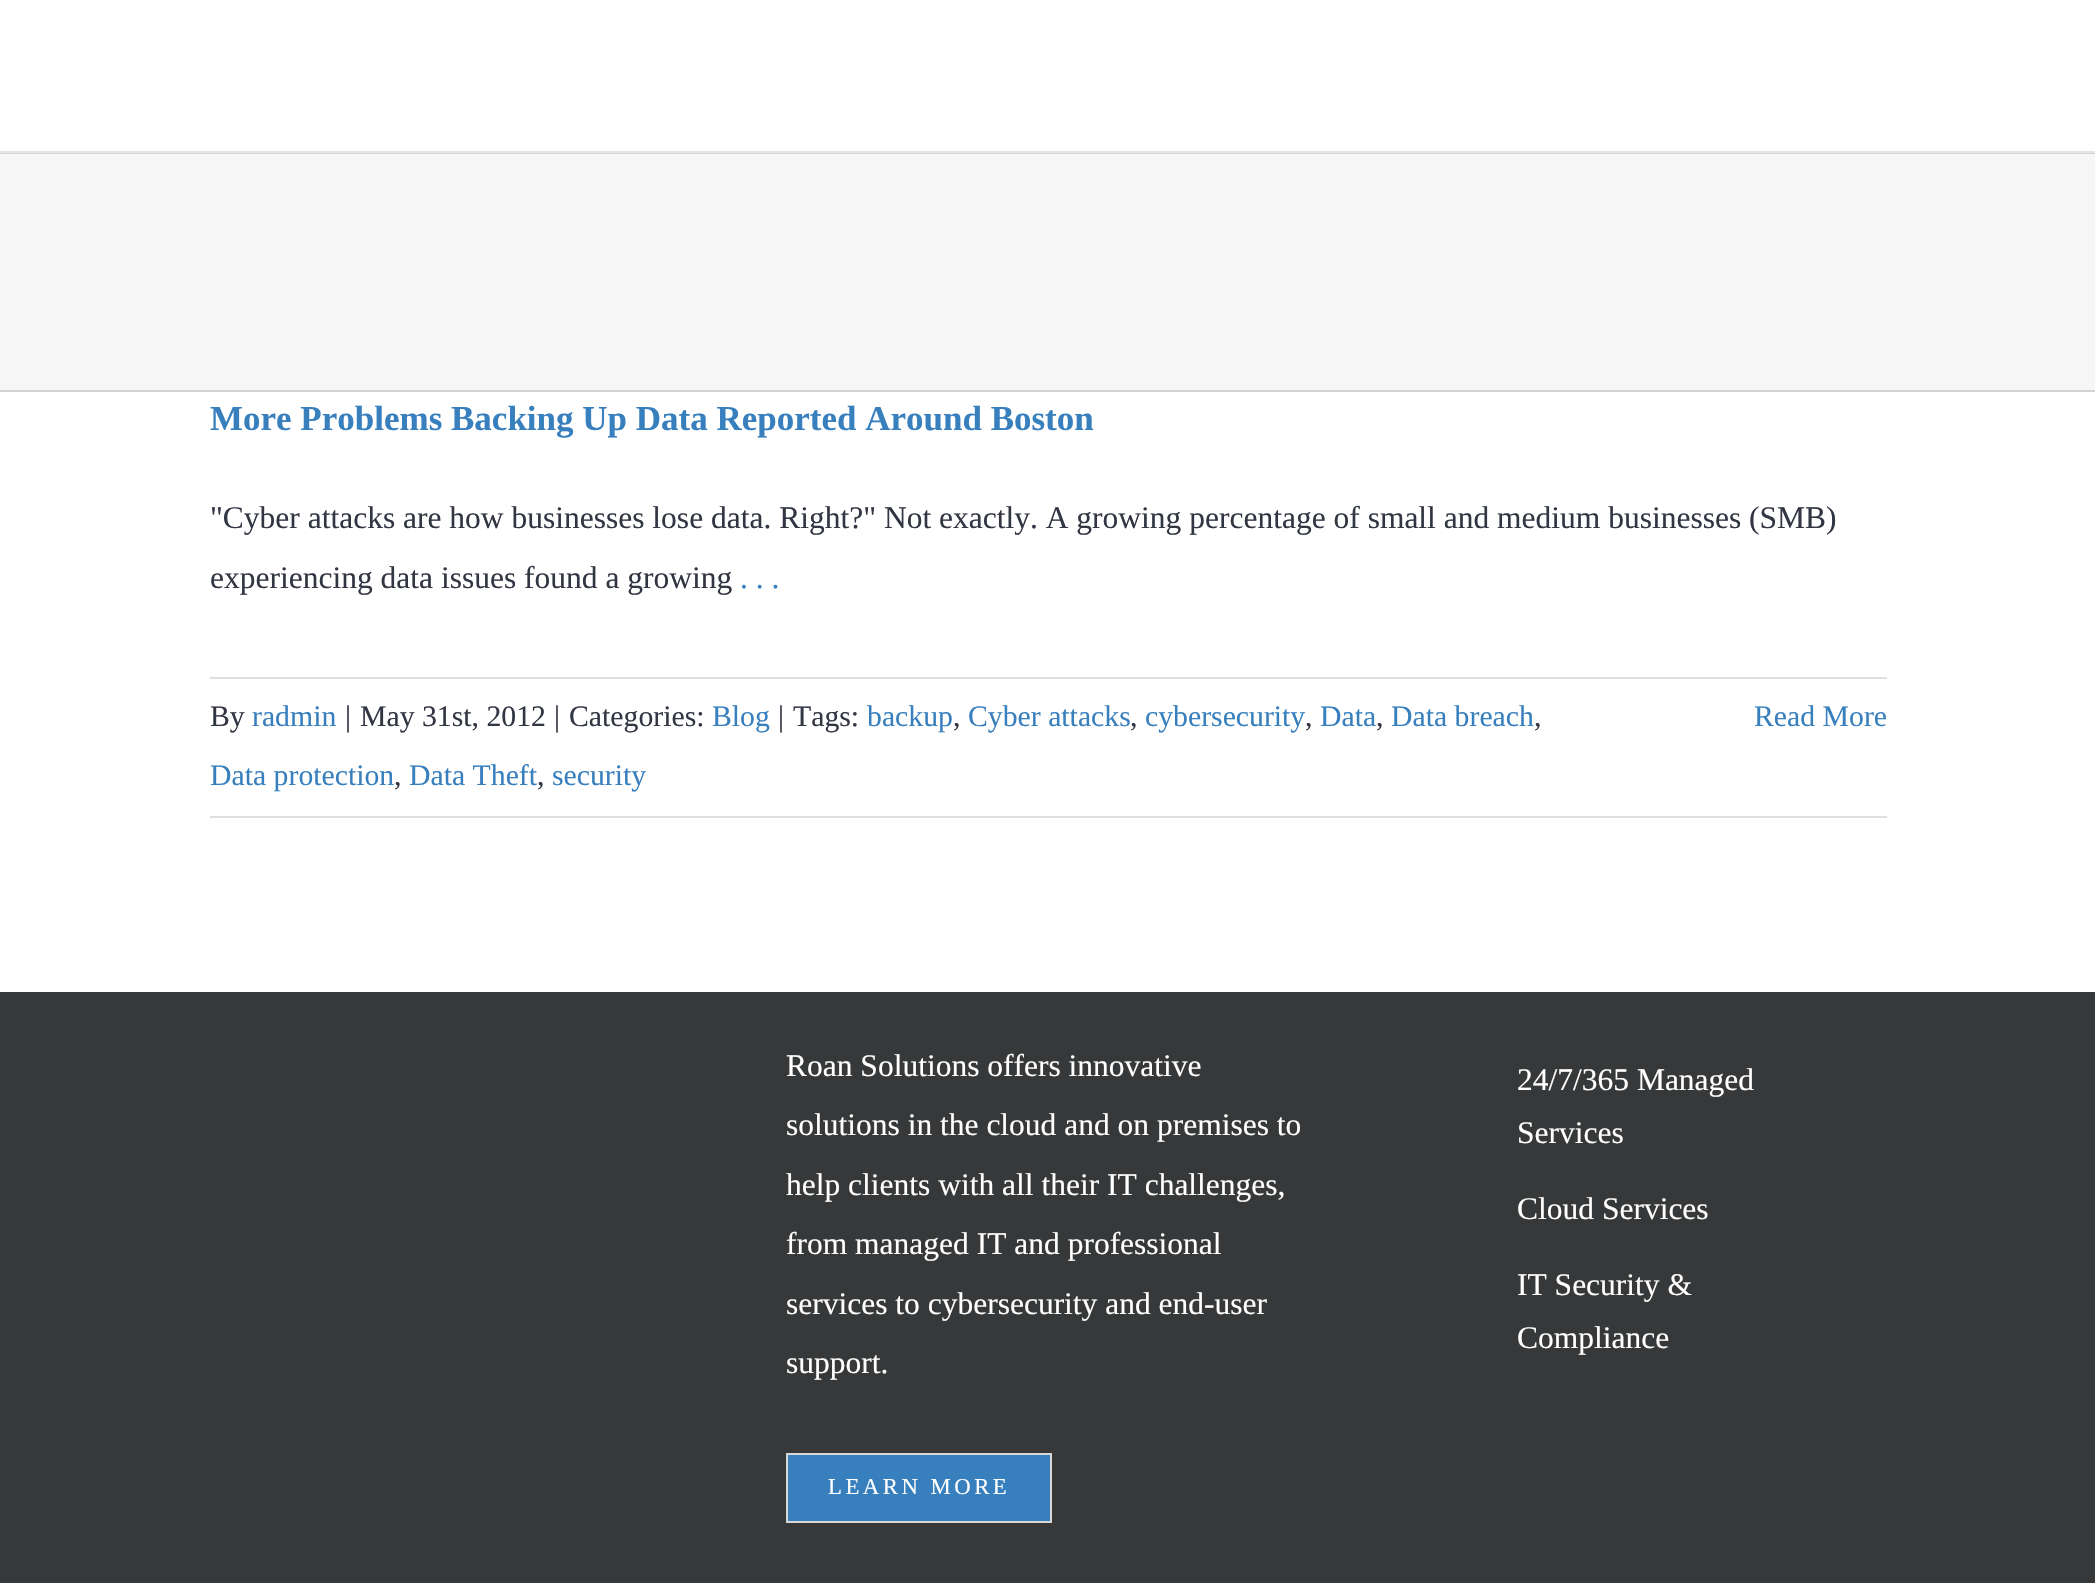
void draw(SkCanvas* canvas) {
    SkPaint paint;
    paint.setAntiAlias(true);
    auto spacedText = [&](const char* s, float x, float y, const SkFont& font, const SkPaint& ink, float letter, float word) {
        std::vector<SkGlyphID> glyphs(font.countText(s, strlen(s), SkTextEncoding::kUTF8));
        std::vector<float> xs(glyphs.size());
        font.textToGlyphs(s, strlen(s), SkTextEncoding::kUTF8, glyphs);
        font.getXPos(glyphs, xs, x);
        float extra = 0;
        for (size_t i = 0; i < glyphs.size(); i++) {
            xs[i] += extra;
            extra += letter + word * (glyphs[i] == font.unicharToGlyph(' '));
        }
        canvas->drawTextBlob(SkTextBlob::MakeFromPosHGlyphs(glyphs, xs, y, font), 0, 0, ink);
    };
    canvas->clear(0xFFFFFFFF);
    paint.setColor(0xFFE5E5E5);
    canvas->drawRect(SkRect::MakeXYWH(0, 151, 2095, 2), paint);
    paint.setColor(0xFFF6F6F6);
    canvas->drawRect(SkRect::MakeXYWH(0, 154, 2095, 236), paint);
    paint.setColor(0xFFD2D3D4);
    canvas->drawRect(SkRect::MakeXYWH(0, 153, 2095, 1), paint);
    canvas->drawRect(SkRect::MakeXYWH(0, 390, 2095, 2), paint);
    SkFont font1(fontMgr->matchFamilyStyle("Liberation Serif", SkFontStyle::Bold()), 35);
    font1.setSubpixel(true);
    paint.setColor(0xFF387FBE);
    canvas->drawString("More Problems Backing Up Data Reported Around Boston", 210, 430, font1, paint);
    SkFont font2(fontMgr->matchFamilyStyle("Liberation Serif", SkFontStyle::Normal()), 31.5f);
    font2.setSubpixel(true);
    paint.setColor(0xFF323643);
    canvas->drawString("\"Cyber attacks are how businesses lose data. Right?\" Not exactly. A growing percentage of small and medium businesses (SMB)", 210, 528, font2, paint);
    canvas->drawString("experiencing data issues found a growing", 210, 588, font2, paint);
    paint.setColor(0xFF387FBE);
    canvas->drawString(". . .", 740, 588, font2, paint);
    paint.setColor(0xFFE0DEDE);
    canvas->drawRect(SkRect::MakeXYWH(210, 677, 1677, 2), paint);
    canvas->drawRect(SkRect::MakeXYWH(210, 816, 1677, 2), paint);
    SkFont font3(fontMgr->matchFamilyStyle("Liberation Serif", SkFontStyle::Normal()), 29.75f);
    font3.setSubpixel(true);
    paint.setColor(0xFF323643);
    canvas->drawString("By", 210, 726, font3, paint);
    paint.setColor(0xFF387FBE);
    canvas->drawString("radmin", 252, 726, font3, paint);
    paint.setColor(0xFF323643);
    canvas->drawString("|", 345, 726, font3, paint);
    canvas->drawString("May 31st, 2012", 360, 726, font3, paint);
    canvas->drawString("|", 554, 726, font3, paint);
    canvas->drawString("Categories:", 569, 726, font3, paint);
    paint.setColor(0xFF387FBE);
    canvas->drawString("Blog", 712, 726, font3, paint);
    paint.setColor(0xFF323643);
    canvas->drawString("|", 778, 726, font3, paint);
    canvas->drawString("Tags:", 793, 726, font3, paint);
    paint.setColor(0xFF387FBE);
    canvas->drawString("backup", 867, 726, font3, paint);
    paint.setColor(0xFF323643);
    canvas->drawString(",", 953, 726, font3, paint);
    paint.setColor(0xFF387FBE);
    canvas->drawString("Cyber attacks", 968, 726, font3, paint);
    paint.setColor(0xFF323643);
    canvas->drawString(",", 1130, 726, font3, paint);
    paint.setColor(0xFF387FBE);
    canvas->drawString("cybersecurity", 1145, 726, font3, paint);
    paint.setColor(0xFF323643);
    canvas->drawString(",", 1305, 726, font3, paint);
    paint.setColor(0xFF387FBE);
    canvas->drawString("Data", 1320, 726, font3, paint);
    paint.setColor(0xFF323643);
    canvas->drawString(",", 1376, 726, font3, paint);
    paint.setColor(0xFF387FBE);
    canvas->drawString("Data breach", 1391, 726, font3, paint);
    paint.setColor(0xFF323643);
    canvas->drawString(",", 1534, 726, font3, paint);
    paint.setColor(0xFF387FBE);
    canvas->drawString("Data protection", 210, 785, font3, paint);
    paint.setColor(0xFF323643);
    canvas->drawString(",", 394, 785, font3, paint);
    paint.setColor(0xFF387FBE);
    canvas->drawString("Data Theft", 409, 785, font3, paint);
    paint.setColor(0xFF323643);
    canvas->drawString(",", 537, 785, font3, paint);
    paint.setColor(0xFF387FBE);
    canvas->drawString("security", 552, 785, font3, paint);
    canvas->drawString("Read More", 1754, 726, font3, paint);
    paint.setColor(0xFF363839);
    canvas->drawRect(SkRect::MakeXYWH(0, 992, 2095, 591), paint);
    paint.setColor(0xFFFFFFFF);
    canvas->drawString("Roan Solutions offers innovative", 786, 1076, font2, paint);
    canvas->drawString("solutions in the cloud and on premises to", 786, 1135, font2, paint);
    canvas->drawString("help clients with all their IT challenges,", 786, 1195, font2, paint);
    canvas->drawString("from managed IT and professional", 786, 1254, font2, paint);
    canvas->drawString("services to cybersecurity and end-user", 786, 1314, font2, paint);
    canvas->drawString("support.", 786, 1373, font2, paint);
    paint.setColor(0xFF387FBE);
    canvas->drawRect(SkRect::MakeXYWH(787, 1454, 264, 68), paint);
    paint.setStyle(SkPaint::kStroke_Style);
    paint.setStrokeWidth(2);
    paint.setColor(0xFFD7D7D7);
    canvas->drawRect(SkRect::MakeXYWH(787, 1454, 264, 68), paint);
    SkFont font4(fontMgr->matchFamilyStyle("Liberation Serif", SkFontStyle::Normal()), 22.75f);
    font4.setSubpixel(true);
    paint.setStyle(SkPaint::kFill_Style);
    paint.setColor(0xFFFFFFFF);
    spacedText("LEARN MORE", 828, 1494, font4, paint, 3.5f, 0);
    canvas->drawString("24/7/365 Managed", 1517, 1090, font2, paint);
    canvas->drawString("Services", 1517, 1143, font2, paint);
    canvas->drawString("Cloud Services", 1517, 1219, font2, paint);
    canvas->drawString("IT Security &", 1517, 1295, font2, paint);
    canvas->drawString("Compliance", 1517, 1348, font2, paint);
}
